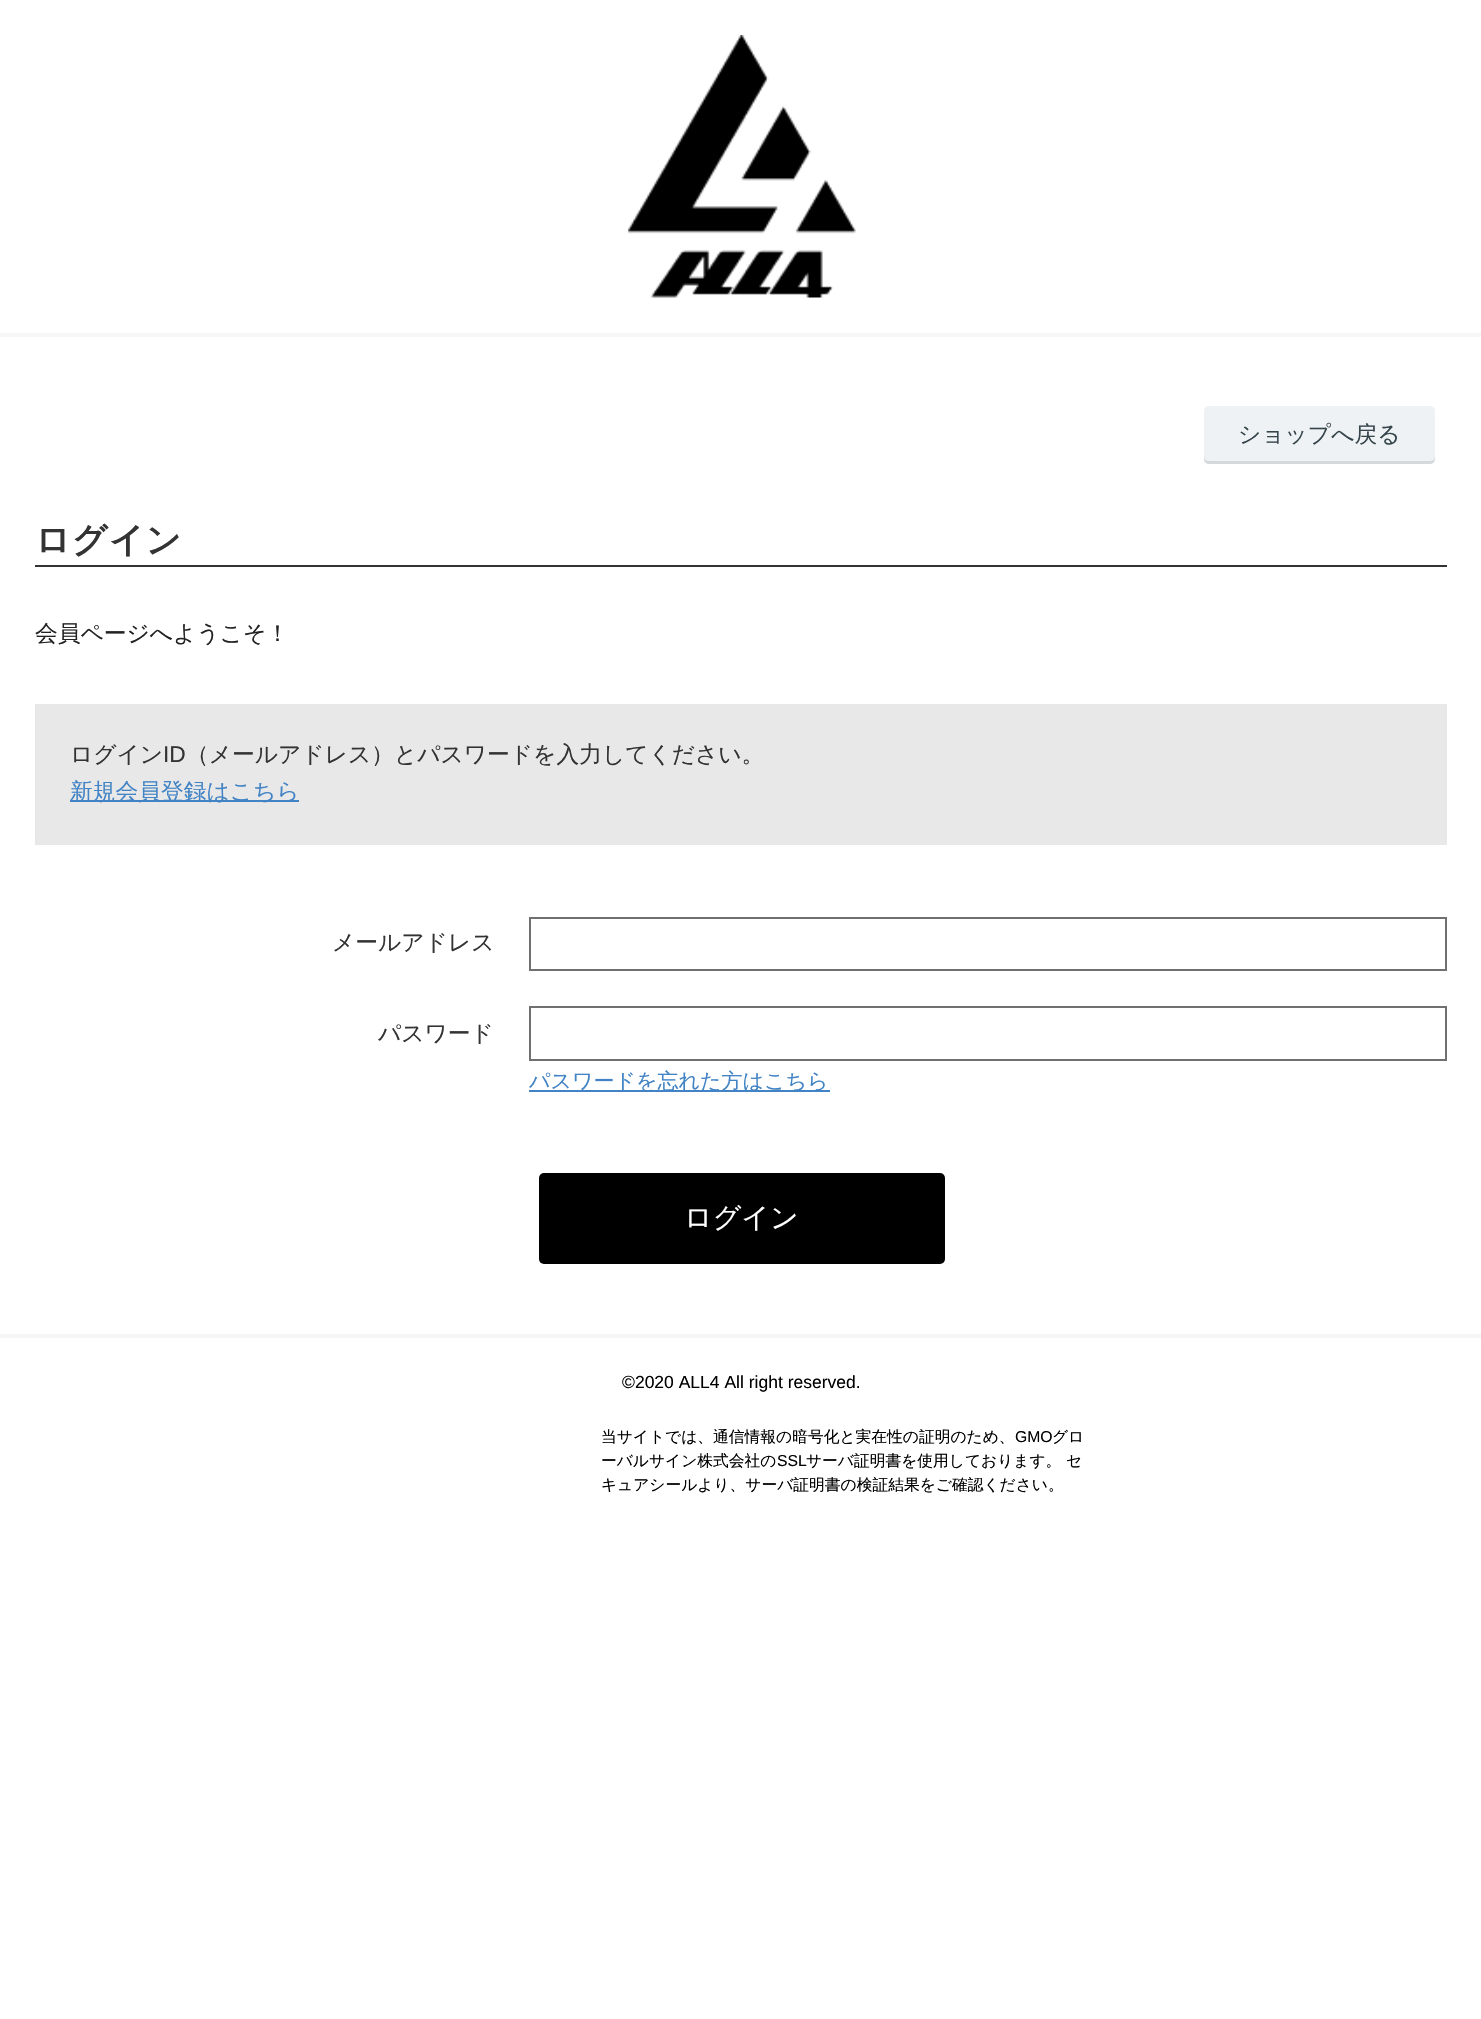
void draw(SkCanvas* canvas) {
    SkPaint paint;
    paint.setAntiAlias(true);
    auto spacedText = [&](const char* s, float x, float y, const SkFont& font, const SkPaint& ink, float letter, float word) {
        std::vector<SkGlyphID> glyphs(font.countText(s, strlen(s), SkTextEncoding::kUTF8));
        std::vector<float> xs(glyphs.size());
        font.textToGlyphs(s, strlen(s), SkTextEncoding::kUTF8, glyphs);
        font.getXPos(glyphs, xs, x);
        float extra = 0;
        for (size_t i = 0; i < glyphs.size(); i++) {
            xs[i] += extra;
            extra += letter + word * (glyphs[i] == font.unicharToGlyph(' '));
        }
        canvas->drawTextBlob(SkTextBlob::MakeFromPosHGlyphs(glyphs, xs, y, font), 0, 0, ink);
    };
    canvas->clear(0xFFFFFFFF);
    canvas->drawImageRect(SkImages::DeferredFromEncodedData(SkData::MakeFromFileName("img1.png")), SkRect::MakeXYWH(628, 35, 228, 263), SkSamplingOptions());
    paint.setColor(0xFFF6F6F6);
    canvas->drawRect(SkRect::MakeXYWH(0, 333, 1481, 4), paint);
    canvas->drawRect(SkRect::MakeXYWH(0, 1334, 1481, 4), paint);
    paint.setColor(0xFFEFF2F4);
    canvas->drawRoundRect(SkRect::MakeXYWH(1204, 406, 231, 58), 5, 5, paint);
    paint.setColor(0x1A000000);
    canvas->drawPath(SkPathBuilder().moveTo(1204, 456).lineTo(1204, 459).cubicTo(1204, 462, 1206, 464, 1209, 464).lineTo(1430, 464).cubicTo(1433, 464, 1435, 462, 1435, 459).lineTo(1435, 456).cubicTo(1435, 459, 1433, 461, 1430, 461).lineTo(1209, 461).cubicTo(1206, 461, 1204, 459, 1204, 456).close().detach(), paint);
    SkFont font1(fontMgr->matchFamilyStyle("WenQuanYi Zen Hei", SkFontStyle(500, SkFontStyle::kNormal_Width, SkFontStyle::kUpright_Slant)), 22.75f);
    font1.setSubpixel(true);
    paint.setColor(0xFF35454C);
    canvas->drawString("ショップへ戻る", 1238, 442, font1, paint);
    paint.setColor(0xFF333333);
    canvas->drawRect(SkRect::MakeXYWH(35, 565, 1412, 2), paint);
    SkFont font2(fontMgr->matchFamilyStyle("WenQuanYi Zen Hei", SkFontStyle::Bold()), 35);
    font2.setSubpixel(true);
    spacedText("ログイン", 35, 552, font2, paint, 1, 0);
    paint.setColor(0xFF222222);
    canvas->drawString("会員ページへようこそ！", 35, 641, font1, paint);
    paint.setColor(0xFFE8E8E8);
    canvas->drawRect(SkRect::MakeXYWH(35, 704, 1412, 141), paint);
    paint.setColor(0xFF333333);
    canvas->drawString("ログイン", 70, 762, font1, paint);
    SkFont font3(fontMgr->matchFamilyStyle("Liberation Sans", SkFontStyle::Normal()), 22.75f);
    font3.setSubpixel(true);
    canvas->drawString("ID", 163, 762, font3, paint);
    canvas->drawString("（メールアドレス）とパスワードを入力してください。", 186, 762, font1, paint);
    paint.setColor(0xFF4183C4);
    canvas->drawRect(SkRect::MakeXYWH(70, 800, 229, 2), paint);
    canvas->drawString("新規会員登録はこちら", 70, 799, font1, paint);
    paint.setColor(0xFF333333);
    canvas->drawString("メールアドレス", 332, 950, font1, paint);
    paint.setStyle(SkPaint::kStroke_Style);
    paint.setStrokeWidth(2);
    paint.setColor(0xFF707070);
    canvas->drawRect(SkRect::MakeXYWH(530, 918, 916, 52), paint);
    paint.setStyle(SkPaint::kFill_Style);
    paint.setColor(0xFF333333);
    canvas->drawString("パスワード", 378, 1041, font1, paint);
    paint.setStyle(SkPaint::kStroke_Style);
    paint.setColor(0xFF707070);
    canvas->drawRect(SkRect::MakeXYWH(530, 1007, 916, 53), paint);
    paint.setStyle(SkPaint::kFill_Style);
    paint.setColor(0xFF4183C4);
    canvas->drawRect(SkRect::MakeXYWH(529, 1090, 301, 2), paint);
    SkFont font4(fontMgr->matchFamilyStyle("WenQuanYi Zen Hei", SkFontStyle(500, SkFontStyle::kNormal_Width, SkFontStyle::kUpright_Slant)), 21);
    font4.setSubpixel(true);
    canvas->drawString("パスワードを忘れた方はこちら", 529, 1088, font4, paint);
    paint.setColor(0xFF000000);
    canvas->drawRoundRect(SkRect::MakeXYWH(539, 1173, 406, 91), 5, 5, paint);
    paint.setColor(0x1A000000);
    canvas->drawPath(SkPathBuilder().moveTo(539, 1255).cubicTo(539, 1259, 539, 1264, 544, 1264).lineTo(940, 1264).cubicTo(945, 1264, 945, 1259, 945, 1255).cubicTo(945, 1258, 943, 1261, 940, 1261).lineTo(544, 1261).cubicTo(541, 1261, 539, 1258, 539, 1255).close().detach(), paint);
    SkFont font5(fontMgr->matchFamilyStyle("WenQuanYi Zen Hei", SkFontStyle(500, SkFontStyle::kNormal_Width, SkFontStyle::kUpright_Slant)), 28);
    font5.setSubpixel(true);
    paint.setColor(0xFFFFFFFF);
    canvas->drawString("ログイン", 684, 1227, font5, paint);
    SkFont font6(fontMgr->matchFamilyStyle("Liberation Sans", SkFontStyle::Normal()), 17.5f);
    font6.setSubpixel(true);
    paint.setColor(0xFF000000);
    canvas->drawString("©2020 ALL4 All right reserved.", 622, 1388, font6, paint);
    SkFont font7(fontMgr->matchFamilyStyle("WenQuanYi Zen Hei", SkFontStyle(500, SkFontStyle::kNormal_Width, SkFontStyle::kUpright_Slant)), 15.75f);
    font7.setSubpixel(true);
    canvas->drawString("当サイトでは、通信情報の暗号化と実在性の証明のため、", 601, 1442, font7, paint);
    SkFont font8(fontMgr->matchFamilyStyle("Liberation Sans", SkFontStyle::Normal()), 15.75f);
    font8.setSubpixel(true);
    canvas->drawString("GMO", 1015, 1442, font8, paint);
    canvas->drawString("グロ", 1052, 1442, font7, paint);
    canvas->drawString("ーバルサイン株式会社の", 601, 1466, font7, paint);
    canvas->drawString("SSL", 777, 1466, font8, paint);
    canvas->drawString("サーバ証明書を使用しております。 セ", 806, 1466, font7, paint);
    canvas->drawString("キュアシールより、サーバ証明書の検証結果をご確認ください。", 601, 1490, font7, paint);
}
